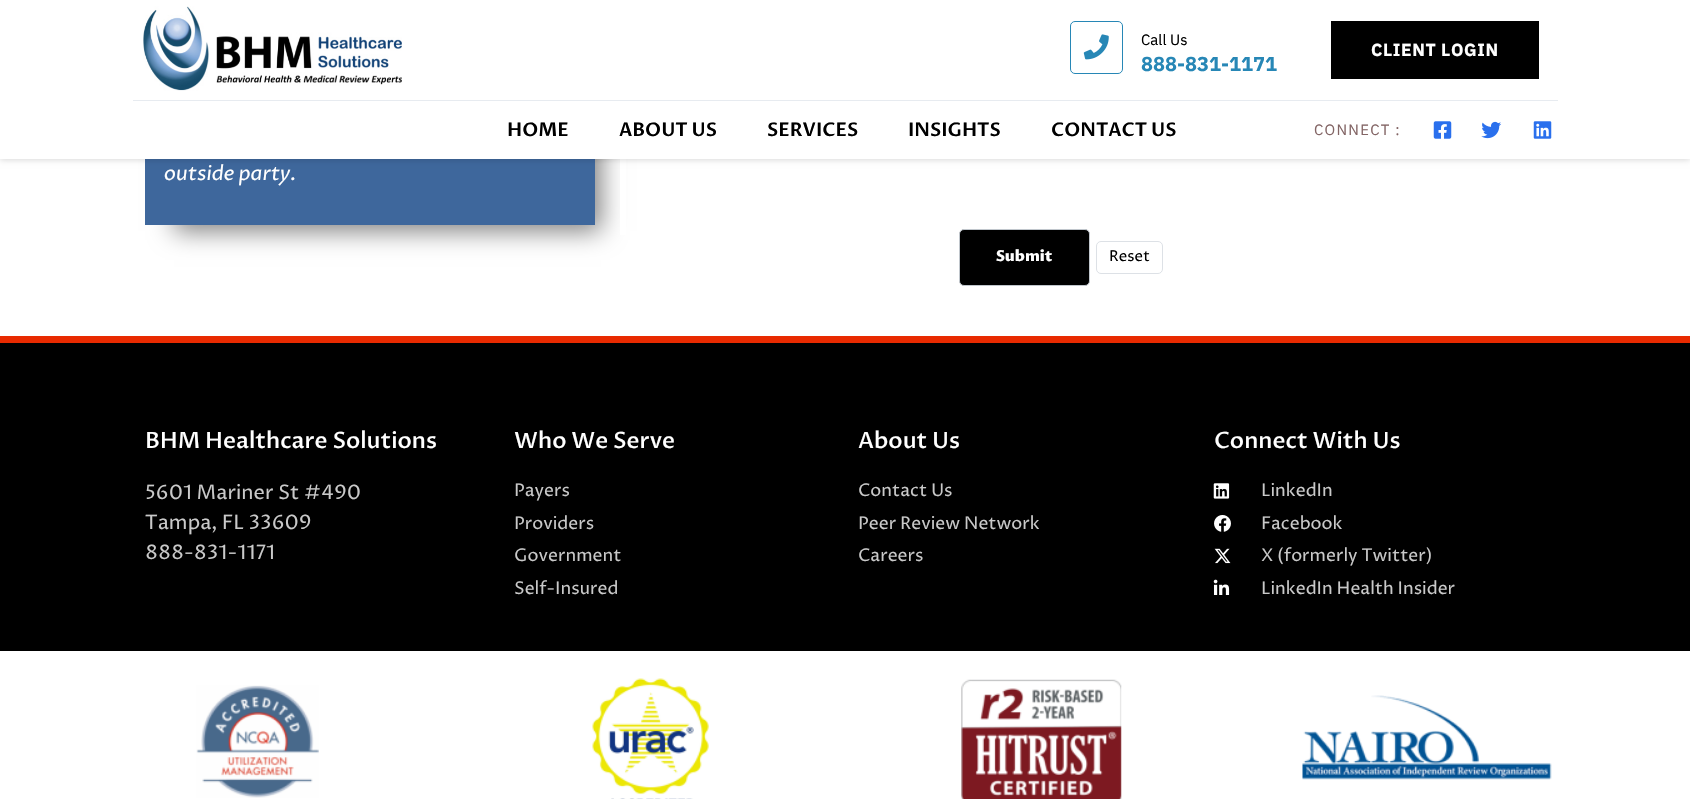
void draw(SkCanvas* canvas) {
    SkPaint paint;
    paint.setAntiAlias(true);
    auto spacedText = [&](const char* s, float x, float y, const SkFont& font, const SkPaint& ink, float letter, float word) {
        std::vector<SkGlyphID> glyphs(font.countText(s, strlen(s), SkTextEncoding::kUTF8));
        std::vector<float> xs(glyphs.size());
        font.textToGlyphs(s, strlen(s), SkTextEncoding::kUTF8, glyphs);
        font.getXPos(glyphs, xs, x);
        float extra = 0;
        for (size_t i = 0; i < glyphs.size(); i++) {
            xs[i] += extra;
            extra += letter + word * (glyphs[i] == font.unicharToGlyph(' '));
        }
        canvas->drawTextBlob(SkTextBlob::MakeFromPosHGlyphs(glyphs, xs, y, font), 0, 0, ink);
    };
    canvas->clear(0xFFFFFFFF);
    paint.setColor(0x80000000);
    paint.setMaskFilter(SkMaskFilter::MakeBlur(kNormal_SkBlurStyle, 12));
    canvas->drawRect(SkRect::MakeXYWH(174, -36, 427, 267), paint);
    paint.setMaskFilter(nullptr);
    paint.setColor(0xFF3E679C);
    canvas->drawRect(SkRect::MakeXYWH(145, 159, 450, 66), paint);
    paint.setColor(0xFFFFFFFF);
    canvas->drawRect(SkRect::MakeXYWH(620, 159, 6, 76), paint);
    paint.setColor(0x26000000);
    paint.setMaskFilter(SkMaskFilter::MakeBlur(kNormal_SkBlurStyle, 3));
    canvas->drawRect(SkRect::MakeXYWH(0, 1, 1690, 159), paint);
    paint.setMaskFilter(nullptr);
    paint.setColor(0xFFFFFFFF);
    canvas->drawRect(SkRect::MakeXYWH(0, 0, 1690, 159), paint);
    canvas->drawImageRect(SkImages::DeferredFromEncodedData(SkData::MakeFromFileName("img1.png")), SkRect::MakeXYWH(143, 6, 259, 85), SkSamplingOptions());
    paint.setStyle(SkPaint::kStroke_Style);
    paint.setStrokeWidth(1);
    paint.setColor(0xFF2787B6);
    canvas->drawRoundRect(SkRect::MakeXYWH(1070.5f, 21.5f, 52, 52), 4.5f, 4.5f, paint);
    canvas->drawImageRect(SkImages::DeferredFromEncodedData(SkData::MakeFromFileName("img2.png")), SkRect::MakeXYWH(1083, 34, 26, 26), SkSamplingOptions());
    SkFont font1(fontMgr->matchFamilyStyle("IBM Plex Sans", SkFontStyle::Normal()), 15);
    font1.setSubpixel(true);
    paint.setStyle(SkPaint::kFill_Style);
    paint.setColor(0xFF000000);
    canvas->drawString("Call Us", 1141, 45, font1, paint);
    SkFont font2(fontMgr->matchFamilyStyle("IBM Plex Sans", SkFontStyle::Bold()), 20);
    font2.setSubpixel(true);
    paint.setColor(0xFF2787B6);
    canvas->drawString("888-831-1171", 1141, 71, font2, paint);
    paint.setColor(0xFF000000);
    canvas->drawRect(SkRect::MakeXYWH(1331, 21, 208, 58), paint);
    SkFont font3(fontMgr->matchFamilyStyle("IBM Plex Sans", SkFontStyle::Bold()), 17.5f);
    font3.setSubpixel(true);
    paint.setColor(0xFFFFFFFF);
    spacedText("CLIENT LOGIN", 1371, 56, font3, paint, 0.6f, 0);
    paint.setColor(0xFFE7EBF0);
    canvas->drawRect(SkRect::MakeXYWH(133, 100, 1425, 1), paint);
    SkFont font4(fontMgr->matchFamilyStyle("Proza Libre", SkFontStyle(600, SkFontStyle::kNormal_Width, SkFontStyle::kUpright_Slant)), 18.75f);
    font4.setSubpixel(true);
    paint.setColor(0xFF000000);
    canvas->drawString("HOME", 507, 136, font4, paint);
    canvas->drawString("ABOUT US", 619, 136, font4, paint);
    canvas->drawString("SERVICES", 767, 136, font4, paint);
    canvas->drawString("INSIGHTS", 908, 136, font4, paint);
    canvas->drawString("CONTACT US", 1051, 136, font4, paint);
    paint.setColor(0xFF836565);
    spacedText("CONNECT :", 1314, 135, font1, paint, 1.25f, 0);
    canvas->drawImageRect(SkImages::DeferredFromEncodedData(SkData::MakeFromFileName("img3.png")), SkRect::MakeXYWH(1433, 121, 19, 18), SkSamplingOptions());
    canvas->drawImageRect(SkImages::DeferredFromEncodedData(SkData::MakeFromFileName("img4.png")), SkRect::MakeXYWH(1481, 121, 21, 18), SkSamplingOptions());
    canvas->drawImageRect(SkImages::DeferredFromEncodedData(SkData::MakeFromFileName("img5.png")), SkRect::MakeXYWH(1533, 121, 19, 18), SkSamplingOptions());
    SkFont font5(fontMgr->matchFamilyStyle("Proza Libre", SkFontStyle::Italic()), 20);
    font5.setSubpixel(true);
    paint.setColor(0xFFFFFFFF);
    canvas->drawString("outside party.", 164, 180, font5, paint);
    paint.setColor(0xFF000000);
    canvas->drawRoundRect(SkRect::MakeXYWH(959.5f, 229.5f, 130, 56), 4.5f, 4.5f, paint);
    paint.setStyle(SkPaint::kStroke_Style);
    paint.setColor(0xFFC0C6CC);
    canvas->drawRoundRect(SkRect::MakeXYWH(959.5f, 229.5f, 130, 56), 4.5f, 4.5f, paint);
    SkFont font6(fontMgr->matchFamilyStyle("Proza Libre", SkFontStyle(800, SkFontStyle::kNormal_Width, SkFontStyle::kUpright_Slant)), 15);
    font6.setSubpixel(true);
    paint.setStyle(SkPaint::kFill_Style);
    paint.setColor(0xFFFFFFFF);
    canvas->drawString("Submit", 996, 261, font6, paint);
    paint.setStyle(SkPaint::kStroke_Style);
    paint.setColor(0xFFDDE1E6);
    canvas->drawRoundRect(SkRect::MakeXYWH(1096.5f, 241.5f, 66, 32), 4.5f, 4.5f, paint);
    SkFont font7(fontMgr->matchFamilyStyle("Proza Libre", SkFontStyle::Normal()), 15);
    font7.setSubpixel(true);
    paint.setStyle(SkPaint::kFill_Style);
    paint.setColor(0xFF000000);
    canvas->drawString("Reset", 1109, 261, font7, paint);
    canvas->drawRect(SkRect::MakeXYWH(0, 343, 1690, 308), paint);
    paint.setColor(0xFFE82A00);
    canvas->drawRect(SkRect::MakeXYWH(0, 336, 1690, 7), paint);
    SkFont font8(fontMgr->matchFamilyStyle("Proza Libre", SkFontStyle(500, SkFontStyle::kNormal_Width, SkFontStyle::kUpright_Slant)), 22.5f);
    font8.setSubpixel(true);
    paint.setColor(0xFFFFFFFF);
    canvas->drawString("BHM Healthcare Solutions", 145, 448, font8, paint);
    SkFont font9(fontMgr->matchFamilyStyle("Proza Libre", SkFontStyle::Normal()), 20);
    font9.setSubpixel(true);
    paint.setColor(0xFFC9C9C9);
    canvas->drawString("5601 Mariner St #490", 145, 499, font9, paint);
    canvas->drawString("Tampa, FL 33609", 145, 529, font9, paint);
    canvas->drawString("888-831-1171", 145, 559, font9, paint);
    paint.setColor(0xFFFFFFFF);
    canvas->drawString("Who We Serve", 514, 448, font8, paint);
    SkFont font10(fontMgr->matchFamilyStyle("Proza Libre", SkFontStyle::Normal()), 17.5f);
    font10.setSubpixel(true);
    paint.setColor(0xFFC9C9C9);
    canvas->drawString("Payers", 514, 496, font10, paint);
    canvas->drawString("Providers", 514, 529, font10, paint);
    canvas->drawString("Government", 514, 561, font10, paint);
    canvas->drawString("Self-Insured", 514, 594, font10, paint);
    paint.setColor(0xFFFFFFFF);
    canvas->drawString("About Us", 858, 448, font8, paint);
    paint.setColor(0xFFC9C9C9);
    canvas->drawString("Contact Us", 858, 496, font10, paint);
    canvas->drawString("Peer Review Network", 858, 529, font10, paint);
    canvas->drawString("Careers", 858, 561, font10, paint);
    paint.setColor(0xFFFFFFFF);
    canvas->drawString("Connect With Us", 1214, 448, font8, paint);
    canvas->drawImageRect(SkImages::DeferredFromEncodedData(SkData::MakeFromFileName("img6.png")), SkRect::MakeXYWH(1213, 483, 17, 16), SkSamplingOptions());
    paint.setColor(0xFFC9C9C9);
    canvas->drawString("LinkedIn", 1261, 496, font10, paint);
    canvas->drawImageRect(SkImages::DeferredFromEncodedData(SkData::MakeFromFileName("img7.png")), SkRect::MakeXYWH(1214, 515, 17, 17), SkSamplingOptions());
    canvas->drawString("Facebook", 1261, 529, font10, paint);
    canvas->drawImageRect(SkImages::DeferredFromEncodedData(SkData::MakeFromFileName("img8.png")), SkRect::MakeXYWH(1214, 548, 17, 16), SkSamplingOptions());
    canvas->drawString("X (formerly Twitter)", 1261, 561, font10, paint);
    canvas->drawImageRect(SkImages::DeferredFromEncodedData(SkData::MakeFromFileName("img9.png")), SkRect::MakeXYWH(1213, 579, 17, 16), SkSamplingOptions());
    canvas->drawString("LinkedIn Health Insider", 1261, 594, font10, paint);
    canvas->drawImageRect(SkImages::DeferredFromEncodedData(SkData::MakeFromFileName("img10.png")), SkRect::MakeXYWH(196, 685, 123, 113), SkSamplingOptions());
    canvas->drawImageRect(SkImages::DeferredFromEncodedData(SkData::MakeFromFileName("img11.png")), SkRect::MakeXYWH(592, 678, 117, 121), SkSamplingOptions());
    canvas->drawImageRect(SkImages::DeferredFromEncodedData(SkData::MakeFromFileName("img12.png")), SkRect::MakeXYWH(961, 679, 161, 120), SkSamplingOptions());
    canvas->drawImageRect(SkImages::DeferredFromEncodedData(SkData::MakeFromFileName("img13.png")), SkRect::MakeXYWH(1302, 695, 250, 85), SkSamplingOptions());
}
